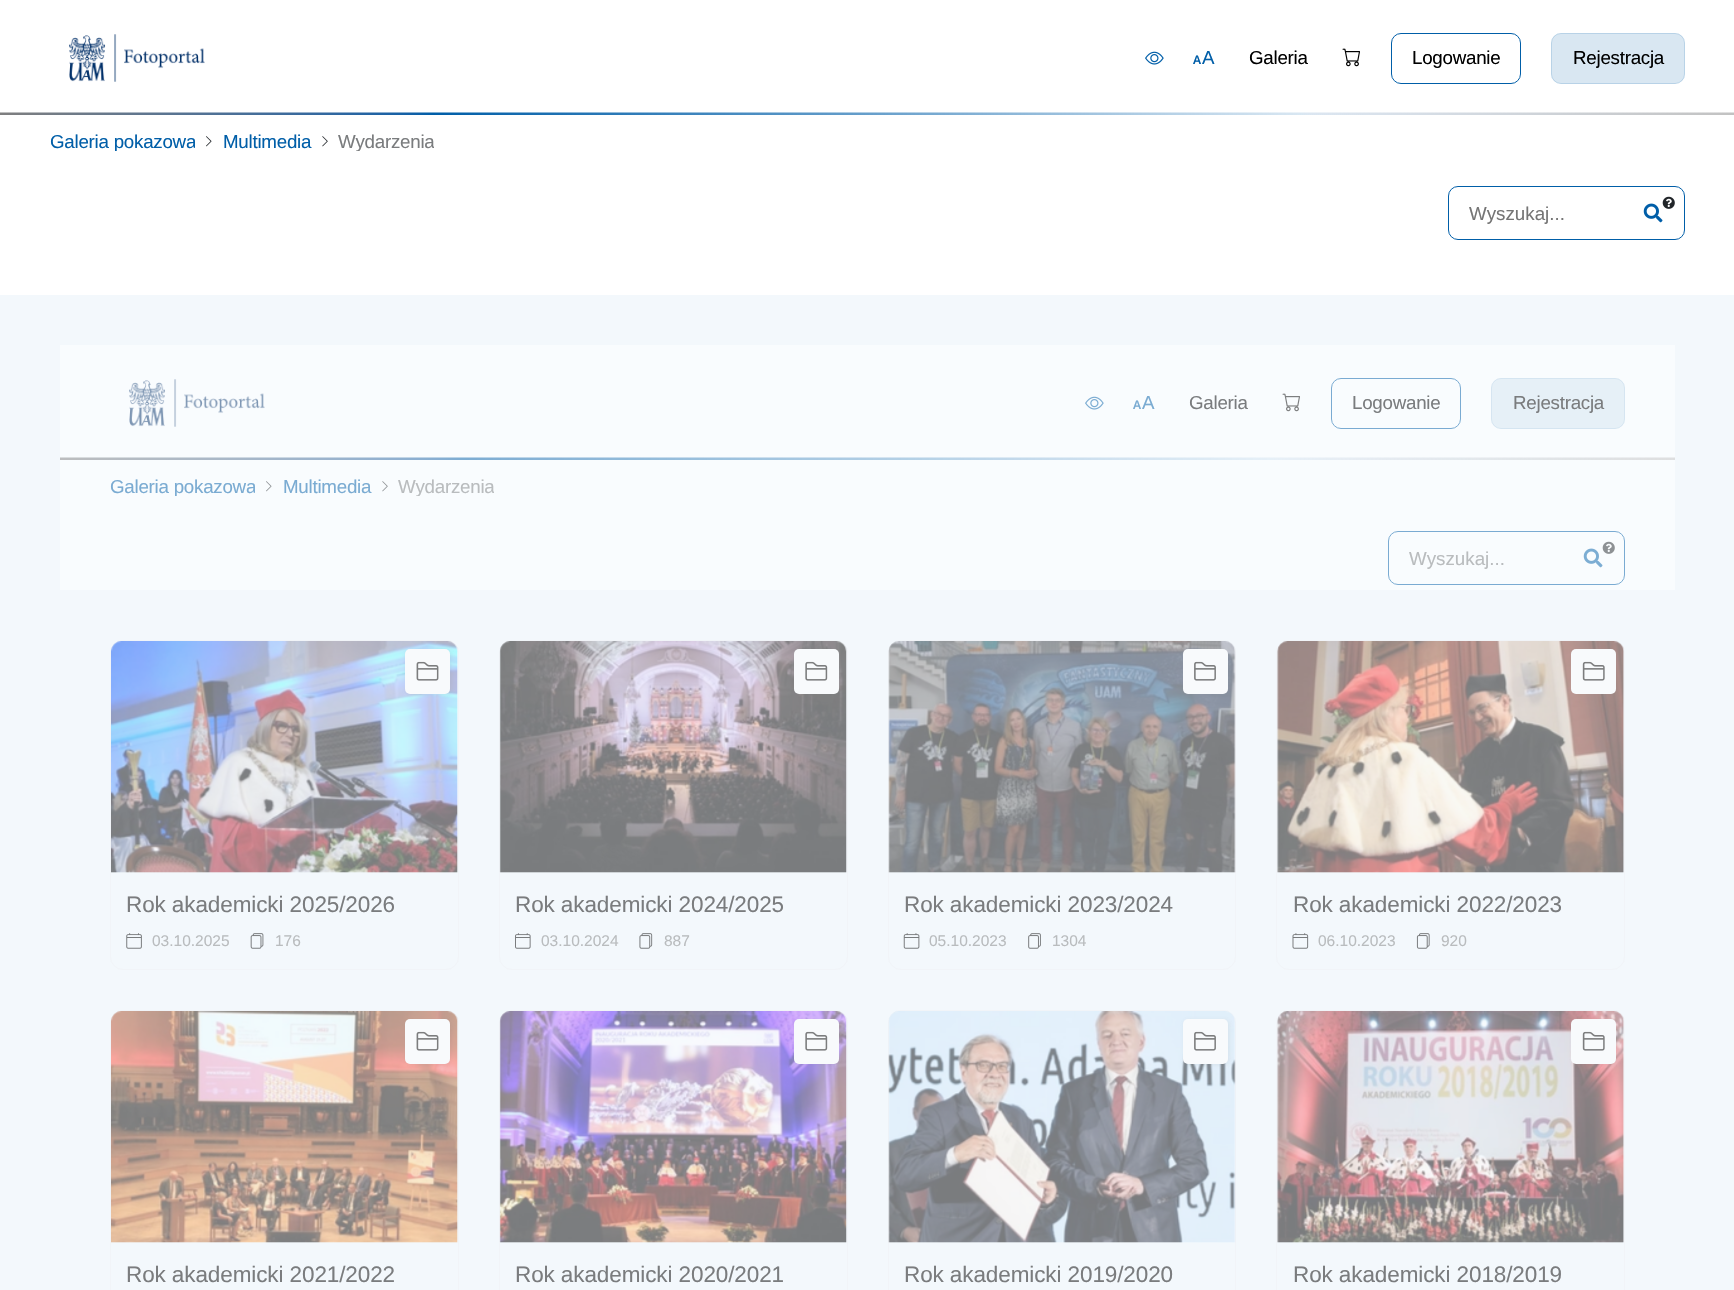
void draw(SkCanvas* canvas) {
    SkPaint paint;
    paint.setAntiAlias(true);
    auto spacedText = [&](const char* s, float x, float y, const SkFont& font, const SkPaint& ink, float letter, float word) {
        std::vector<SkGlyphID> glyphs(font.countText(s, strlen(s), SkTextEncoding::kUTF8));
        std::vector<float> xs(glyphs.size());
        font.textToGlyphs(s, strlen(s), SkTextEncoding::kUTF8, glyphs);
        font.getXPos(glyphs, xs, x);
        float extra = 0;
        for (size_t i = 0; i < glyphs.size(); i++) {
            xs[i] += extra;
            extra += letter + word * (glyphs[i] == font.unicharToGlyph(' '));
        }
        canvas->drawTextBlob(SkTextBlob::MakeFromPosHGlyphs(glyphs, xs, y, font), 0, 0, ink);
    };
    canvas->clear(0xFFFFFFFF);
    canvas->drawImageRect(SkImages::DeferredFromEncodedData(SkData::MakeFromFileName("img1.png")), SkRect::MakeXYWH(0, 112, 1734, 3), SkSamplingOptions());
    canvas->drawImageRect(SkImages::DeferredFromEncodedData(SkData::MakeFromFileName("img2.png")), SkRect::MakeXYWH(69, 34, 136, 48), SkSamplingOptions());
    canvas->drawImageRect(SkImages::DeferredFromEncodedData(SkData::MakeFromFileName("img3.png")), SkRect::MakeXYWH(1145, 51, 19, 14), SkSamplingOptions());
    SkFont font1(fontMgr->matchFamilyStyle("Noto Sans", SkFontStyle(600, SkFontStyle::kNormal_Width, SkFontStyle::kUpright_Slant)), 12);
    font1.setSubpixel(true);
    paint.setColor(0xFF005EA8);
    canvas->drawString("A", 1193, 64, font1, paint);
    SkFont font2(fontMgr->matchFamilyStyle("Liberation Sans", SkFontStyle::Normal()), 18.75f);
    font2.setSubpixel(true);
    canvas->drawString("A", 1202, 64, font2, paint);
    paint.setColor(0xFF000000);
    spacedText("Galeria", 1249, 64, font2, paint, -0.25f, 0);
    canvas->drawImageRect(SkImages::DeferredFromEncodedData(SkData::MakeFromFileName("img4.png")), SkRect::MakeXYWH(1342, 48, 18, 19), SkSamplingOptions());
    paint.setStyle(SkPaint::kStroke_Style);
    paint.setStrokeWidth(1);
    paint.setColor(0xFF005EA8);
    canvas->drawRoundRect(SkRect::MakeXYWH(1391.5f, 33.5f, 129, 50), 9.5f, 9.5f, paint);
    paint.setStyle(SkPaint::kFill_Style);
    paint.setColor(0xFF000000);
    spacedText("Logowanie", 1412, 64, font2, paint, -0.25f, 0);
    paint.setColor(0xFFD9E7F2);
    canvas->drawRoundRect(SkRect::MakeXYWH(1551, 33, 134, 51), 10, 10, paint);
    paint.setStyle(SkPaint::kStroke_Style);
    paint.setColor(0x26005EA8);
    canvas->drawRoundRect(SkRect::MakeXYWH(1551.5f, 33.5f, 133, 50), 9.5f, 9.5f, paint);
    paint.setStyle(SkPaint::kFill_Style);
    paint.setColor(0xFF000000);
    spacedText("Rejestracja", 1573, 64, font2, paint, -0.25f, 0);
    canvas->save();
    canvas->clipRect(SkRect::MakeXYWH(50, 130, 145, 21));
    paint.setColor(0xFF005EA8);
    spacedText("Galeria pokazowa", 50, 148, font2, paint, -0.25f, 0);
    canvas->restore();
    canvas->drawImageRect(SkImages::DeferredFromEncodedData(SkData::MakeFromFileName("img5.png")), SkRect::MakeXYWH(206, 136, 6, 11), SkSamplingOptions());
    spacedText("Multimedia", 223, 148, font2, paint, -0.25f, 0);
    canvas->drawImageRect(SkImages::DeferredFromEncodedData(SkData::MakeFromFileName("img6.png")), SkRect::MakeXYWH(322, 136, 6, 11), SkSamplingOptions());
    canvas->save();
    canvas->clipRect(SkRect::MakeXYWH(319, 130, 115, 21));
    paint.setColor(0xFF7A7C7E);
    spacedText("Wydarzenia", 338, 148, font2, paint, -0.25f, 0);
    canvas->restore();
    paint.setStyle(SkPaint::kStroke_Style);
    paint.setColor(0xFF005EA8);
    canvas->drawRoundRect(SkRect::MakeXYWH(1448.5f, 186.5f, 236, 53), 9.5f, 9.5f, paint);
    paint.setStyle(SkPaint::kFill_Style);
    paint.setColor(0xFF757575);
    canvas->drawString("Wyszukaj...", 1469, 220, font2, paint);
    canvas->drawImageRect(SkImages::DeferredFromEncodedData(SkData::MakeFromFileName("img7.png")), SkRect::MakeXYWH(1643, 203, 20, 20), SkSamplingOptions());
    canvas->drawImageRect(SkImages::DeferredFromEncodedData(SkData::MakeFromFileName("img8.png")), SkRect::MakeXYWH(1662, 196, 13, 13), SkSamplingOptions());
    paint.setColor(0xFFF3F8FC);
    canvas->drawRect(SkRect::MakeXYWH(0, 295, 1734, 995), paint);
    paint.setColor(0xFFF9FCFE);
    canvas->drawRect(SkRect::MakeXYWH(60, 345, 1615, 245), paint);
    canvas->drawImageRect(SkImages::DeferredFromEncodedData(SkData::MakeFromFileName("img9.png")), SkRect::MakeXYWH(60, 457, 1615, 3), SkSamplingOptions());
    canvas->drawImageRect(SkImages::DeferredFromEncodedData(SkData::MakeFromFileName("img10.png")), SkRect::MakeXYWH(129, 379, 136, 48), SkSamplingOptions());
    canvas->drawImageRect(SkImages::DeferredFromEncodedData(SkData::MakeFromFileName("img11.png")), SkRect::MakeXYWH(1085, 396, 19, 14), SkSamplingOptions());
    paint.setColor(0xFF7AABD2);
    canvas->drawString("A", 1133, 409, font1, paint);
    canvas->drawString("A", 1142, 409, font2, paint);
    paint.setColor(0xFF7A7C7E);
    spacedText("Galeria", 1189, 409, font2, paint, -0.25f, 0);
    canvas->drawImageRect(SkImages::DeferredFromEncodedData(SkData::MakeFromFileName("img12.png")), SkRect::MakeXYWH(1282, 393, 18, 19), SkSamplingOptions());
    paint.setStyle(SkPaint::kStroke_Style);
    paint.setColor(0xFF7AABD2);
    canvas->drawRoundRect(SkRect::MakeXYWH(1331.5f, 378.5f, 129, 50), 9.5f, 9.5f, paint);
    paint.setStyle(SkPaint::kFill_Style);
    paint.setColor(0xFF7A7C7E);
    spacedText("Logowanie", 1352, 409, font2, paint, -0.25f, 0);
    paint.setColor(0xFFE6F0F7);
    canvas->drawRoundRect(SkRect::MakeXYWH(1491, 378, 134, 51), 10, 10, paint);
    paint.setStyle(SkPaint::kStroke_Style);
    paint.setColor(0x267AABD2);
    canvas->drawRoundRect(SkRect::MakeXYWH(1491.5f, 378.5f, 133, 50), 9.5f, 9.5f, paint);
    paint.setStyle(SkPaint::kFill_Style);
    paint.setColor(0xFF7A7C7E);
    spacedText("Rejestracja", 1513, 409, font2, paint, -0.25f, 0);
    canvas->save();
    canvas->clipRect(SkRect::MakeXYWH(110, 475, 145, 21));
    paint.setColor(0xFF7AABD2);
    spacedText("Galeria pokazowa", 110, 493, font2, paint, -0.25f, 0);
    canvas->restore();
    canvas->drawImageRect(SkImages::DeferredFromEncodedData(SkData::MakeFromFileName("img13.png")), SkRect::MakeXYWH(266, 481, 6, 11), SkSamplingOptions());
    spacedText("Multimedia", 283, 493, font2, paint, -0.25f, 0);
    canvas->drawImageRect(SkImages::DeferredFromEncodedData(SkData::MakeFromFileName("img14.png")), SkRect::MakeXYWH(382, 481, 6, 11), SkSamplingOptions());
    canvas->save();
    canvas->clipRect(SkRect::MakeXYWH(379, 475, 115, 21));
    paint.setColor(0xFFB9BCBE);
    spacedText("Wydarzenia", 398, 493, font2, paint, -0.25f, 0);
    canvas->restore();
    paint.setStyle(SkPaint::kStroke_Style);
    paint.setColor(0xFF7AABD2);
    canvas->drawRoundRect(SkRect::MakeXYWH(1388.5f, 531.5f, 236, 53), 9.5f, 9.5f, paint);
    paint.setStyle(SkPaint::kFill_Style);
    paint.setColor(0xFFB9BCBE);
    canvas->drawString("Wyszukaj...", 1409, 565, font2, paint);
    canvas->drawImageRect(SkImages::DeferredFromEncodedData(SkData::MakeFromFileName("img15.png")), SkRect::MakeXYWH(1583, 548, 20, 20), SkSamplingOptions());
    canvas->drawImageRect(SkImages::DeferredFromEncodedData(SkData::MakeFromFileName("img16.png")), SkRect::MakeXYWH(1602, 541, 13, 13), SkSamplingOptions());
    paint.setStyle(SkPaint::kStroke_Style);
    paint.setColor(0xFFF1F4F8);
    canvas->drawRoundRect(SkRect::MakeXYWH(110.5f, 640.5f, 348, 329), 12.5f, 12.5f, paint);
    canvas->drawImageRect(SkImages::DeferredFromEncodedData(SkData::MakeFromFileName("img17.png")), SkRect::MakeXYWH(111, 641, 347, 232), SkSamplingOptions());
    paint.setStyle(SkPaint::kFill_Style);
    paint.setColor(0x1F7A7C7E);
    paint.setMaskFilter(SkMaskFilter::MakeBlur(kNormal_SkBlurStyle, 2.5f));
    canvas->drawRoundRect(SkRect::MakeXYWH(406, 650, 45, 45), 5, 5, paint);
    paint.setMaskFilter(nullptr);
    paint.setColor(0xFFF8FAFC);
    canvas->drawRoundRect(SkRect::MakeXYWH(405, 649, 45, 45), 5, 5, paint);
    canvas->drawImageRect(SkImages::DeferredFromEncodedData(SkData::MakeFromFileName("img18.png")), SkRect::MakeXYWH(416, 661, 23, 20), SkSamplingOptions());
    SkFont font3(fontMgr->matchFamilyStyle("Liberation Sans", SkFontStyle::Normal()), 22.5f);
    font3.setSubpixel(true);
    paint.setColor(0xFF7A7C7E);
    spacedText("Rok akademicki 2025/2026", 126, 912, font3, paint, -0.1f, 0);
    canvas->drawImageRect(SkImages::DeferredFromEncodedData(SkData::MakeFromFileName("img19.png")), SkRect::MakeXYWH(126, 933, 16, 16), SkSamplingOptions());
    SkFont font4(fontMgr->matchFamilyStyle("Liberation Sans", SkFontStyle::Normal()), 15.5f);
    font4.setSubpixel(true);
    paint.setColor(0xFFB9BCBE);
    canvas->drawString("03.10.2025", 152, 946, font4, paint);
    canvas->drawImageRect(SkImages::DeferredFromEncodedData(SkData::MakeFromFileName("img20.png")), SkRect::MakeXYWH(250, 933, 14, 16), SkSamplingOptions());
    canvas->drawString("176", 275, 946, font4, paint);
    paint.setStyle(SkPaint::kStroke_Style);
    paint.setColor(0xFFF1F4F8);
    canvas->drawRoundRect(SkRect::MakeXYWH(499.5f, 640.5f, 348, 329), 12.5f, 12.5f, paint);
    canvas->drawImageRect(SkImages::DeferredFromEncodedData(SkData::MakeFromFileName("img21.png")), SkRect::MakeXYWH(499, 641, 348, 232), SkSamplingOptions());
    paint.setStyle(SkPaint::kFill_Style);
    paint.setColor(0xFFF8FAFC);
    canvas->drawRoundRect(SkRect::MakeXYWH(794, 649, 45, 45), 5, 5, paint);
    canvas->drawImageRect(SkImages::DeferredFromEncodedData(SkData::MakeFromFileName("img22.png")), SkRect::MakeXYWH(805, 661, 23, 20), SkSamplingOptions());
    paint.setColor(0xFF7A7C7E);
    spacedText("Rok akademicki 2024/2025", 515, 912, font3, paint, -0.1f, 0);
    canvas->drawImageRect(SkImages::DeferredFromEncodedData(SkData::MakeFromFileName("img23.png")), SkRect::MakeXYWH(515, 933, 16, 16), SkSamplingOptions());
    paint.setColor(0xFFB9BCBE);
    canvas->drawString("03.10.2024", 541, 946, font4, paint);
    canvas->drawImageRect(SkImages::DeferredFromEncodedData(SkData::MakeFromFileName("img24.png")), SkRect::MakeXYWH(639, 933, 14, 16), SkSamplingOptions());
    canvas->drawString("887", 664, 946, font4, paint);
    paint.setStyle(SkPaint::kStroke_Style);
    paint.setColor(0xFFF1F4F8);
    canvas->drawRoundRect(SkRect::MakeXYWH(888.5f, 640.5f, 347, 329), 12.5f, 12.5f, paint);
    canvas->drawImageRect(SkImages::DeferredFromEncodedData(SkData::MakeFromFileName("img25.png")), SkRect::MakeXYWH(888, 641, 348, 232), SkSamplingOptions());
    paint.setStyle(SkPaint::kFill_Style);
    paint.setColor(0xFFF8FAFC);
    canvas->drawRoundRect(SkRect::MakeXYWH(1183, 649, 45, 45), 5, 5, paint);
    canvas->drawImageRect(SkImages::DeferredFromEncodedData(SkData::MakeFromFileName("img26.png")), SkRect::MakeXYWH(1194, 661, 22, 20), SkSamplingOptions());
    paint.setColor(0xFF7A7C7E);
    spacedText("Rok akademicki 2023/2024", 904, 912, font3, paint, -0.1f, 0);
    canvas->drawImageRect(SkImages::DeferredFromEncodedData(SkData::MakeFromFileName("img27.png")), SkRect::MakeXYWH(903, 933, 17, 16), SkSamplingOptions());
    paint.setColor(0xFFB9BCBE);
    canvas->drawString("05.10.2023", 929, 946, font4, paint);
    canvas->drawImageRect(SkImages::DeferredFromEncodedData(SkData::MakeFromFileName("img28.png")), SkRect::MakeXYWH(1028, 933, 13, 16), SkSamplingOptions());
    canvas->drawString("1304", 1052, 946, font4, paint);
    paint.setStyle(SkPaint::kStroke_Style);
    paint.setColor(0xFFF1F4F8);
    canvas->drawRoundRect(SkRect::MakeXYWH(1276.5f, 640.5f, 348, 329), 12.5f, 12.5f, paint);
    canvas->drawImageRect(SkImages::DeferredFromEncodedData(SkData::MakeFromFileName("img29.png")), SkRect::MakeXYWH(1277, 641, 347, 232), SkSamplingOptions());
    paint.setStyle(SkPaint::kFill_Style);
    paint.setColor(0xFFF8FAFC);
    canvas->drawRoundRect(SkRect::MakeXYWH(1571, 649, 45, 45), 5, 5, paint);
    canvas->drawImageRect(SkImages::DeferredFromEncodedData(SkData::MakeFromFileName("img30.png")), SkRect::MakeXYWH(1582, 661, 23, 20), SkSamplingOptions());
    paint.setColor(0xFF7A7C7E);
    spacedText("Rok akademicki 2022/2023", 1293, 912, font3, paint, -0.1f, 0);
    canvas->drawImageRect(SkImages::DeferredFromEncodedData(SkData::MakeFromFileName("img31.png")), SkRect::MakeXYWH(1292, 933, 17, 16), SkSamplingOptions());
    paint.setColor(0xFFB9BCBE);
    canvas->drawString("06.10.2023", 1318, 946, font4, paint);
    canvas->drawImageRect(SkImages::DeferredFromEncodedData(SkData::MakeFromFileName("img32.png")), SkRect::MakeXYWH(1416, 933, 14, 16), SkSamplingOptions());
    canvas->drawString("920", 1441, 946, font4, paint);
    paint.setStyle(SkPaint::kStroke_Style);
    paint.setColor(0xFFF1F4F8);
    canvas->drawRoundRect(SkRect::MakeXYWH(110.5f, 1010.5f, 348, 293), 12.5f, 12.5f, paint);
    canvas->drawImageRect(SkImages::DeferredFromEncodedData(SkData::MakeFromFileName("img33.png")), SkRect::MakeXYWH(111, 1011, 347, 232), SkSamplingOptions());
    paint.setStyle(SkPaint::kFill_Style);
    paint.setColor(0x1F7A7C7E);
    paint.setMaskFilter(SkMaskFilter::MakeBlur(kNormal_SkBlurStyle, 2.5f));
    canvas->drawRoundRect(SkRect::MakeXYWH(406, 1020, 45, 45), 5, 5, paint);
    paint.setMaskFilter(nullptr);
    paint.setColor(0xFFF8FAFC);
    canvas->drawRoundRect(SkRect::MakeXYWH(405, 1019, 45, 45), 5, 5, paint);
    canvas->drawImageRect(SkImages::DeferredFromEncodedData(SkData::MakeFromFileName("img18.png")), SkRect::MakeXYWH(416, 1031, 23, 20), SkSamplingOptions());
    paint.setColor(0xFF7A7C7E);
    spacedText("Rok akademicki 2021/2022", 126, 1282, font3, paint, -0.1f, 0);
    paint.setStyle(SkPaint::kStroke_Style);
    paint.setColor(0xFFF1F4F8);
    canvas->drawRoundRect(SkRect::MakeXYWH(499.5f, 1010.5f, 348, 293), 12.5f, 12.5f, paint);
    canvas->drawImageRect(SkImages::DeferredFromEncodedData(SkData::MakeFromFileName("img34.png")), SkRect::MakeXYWH(499, 1011, 348, 232), SkSamplingOptions());
    paint.setStyle(SkPaint::kFill_Style);
    paint.setColor(0x1F7A7C7E);
    paint.setMaskFilter(SkMaskFilter::MakeBlur(kNormal_SkBlurStyle, 2.5f));
    canvas->drawRoundRect(SkRect::MakeXYWH(795, 1020, 45, 45), 5, 5, paint);
    paint.setMaskFilter(nullptr);
    paint.setColor(0xFFF8FAFC);
    canvas->drawRoundRect(SkRect::MakeXYWH(794, 1019, 45, 45), 5, 5, paint);
    canvas->drawImageRect(SkImages::DeferredFromEncodedData(SkData::MakeFromFileName("img22.png")), SkRect::MakeXYWH(805, 1031, 23, 20), SkSamplingOptions());
    paint.setColor(0xFF7A7C7E);
    spacedText("Rok akademicki 2020/2021", 515, 1282, font3, paint, -0.1f, 0);
    paint.setStyle(SkPaint::kStroke_Style);
    paint.setColor(0xFFF1F4F8);
    canvas->drawRoundRect(SkRect::MakeXYWH(888.5f, 1010.5f, 347, 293), 12.5f, 12.5f, paint);
    canvas->drawImageRect(SkImages::DeferredFromEncodedData(SkData::MakeFromFileName("img35.png")), SkRect::MakeXYWH(888, 1011, 348, 232), SkSamplingOptions());
    paint.setStyle(SkPaint::kFill_Style);
    paint.setColor(0x1F7A7C7E);
    paint.setMaskFilter(SkMaskFilter::MakeBlur(kNormal_SkBlurStyle, 2.5f));
    canvas->drawRoundRect(SkRect::MakeXYWH(1184, 1020, 45, 45), 5, 5, paint);
    paint.setMaskFilter(nullptr);
    paint.setColor(0xFFF8FAFC);
    canvas->drawRoundRect(SkRect::MakeXYWH(1183, 1019, 45, 45), 5, 5, paint);
    canvas->drawImageRect(SkImages::DeferredFromEncodedData(SkData::MakeFromFileName("img26.png")), SkRect::MakeXYWH(1194, 1031, 22, 20), SkSamplingOptions());
    paint.setColor(0xFF7A7C7E);
    spacedText("Rok akademicki 2019/2020", 904, 1282, font3, paint, -0.1f, 0);
    paint.setStyle(SkPaint::kStroke_Style);
    paint.setColor(0xFFF1F4F8);
    canvas->drawRoundRect(SkRect::MakeXYWH(1276.5f, 1010.5f, 348, 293), 12.5f, 12.5f, paint);
    canvas->drawImageRect(SkImages::DeferredFromEncodedData(SkData::MakeFromFileName("img36.png")), SkRect::MakeXYWH(1277, 1011, 347, 232), SkSamplingOptions());
    paint.setStyle(SkPaint::kFill_Style);
    paint.setColor(0x1F7A7C7E);
    paint.setMaskFilter(SkMaskFilter::MakeBlur(kNormal_SkBlurStyle, 2.5f));
    canvas->drawRoundRect(SkRect::MakeXYWH(1573, 1020, 45, 45), 5, 5, paint);
    paint.setMaskFilter(nullptr);
    paint.setColor(0xFFF8FAFC);
    canvas->drawRoundRect(SkRect::MakeXYWH(1571, 1019, 45, 45), 5, 5, paint);
    canvas->drawImageRect(SkImages::DeferredFromEncodedData(SkData::MakeFromFileName("img30.png")), SkRect::MakeXYWH(1582, 1031, 23, 20), SkSamplingOptions());
    paint.setColor(0xFF7A7C7E);
    spacedText("Rok akademicki 2018/2019", 1293, 1282, font3, paint, -0.1f, 0);
}
